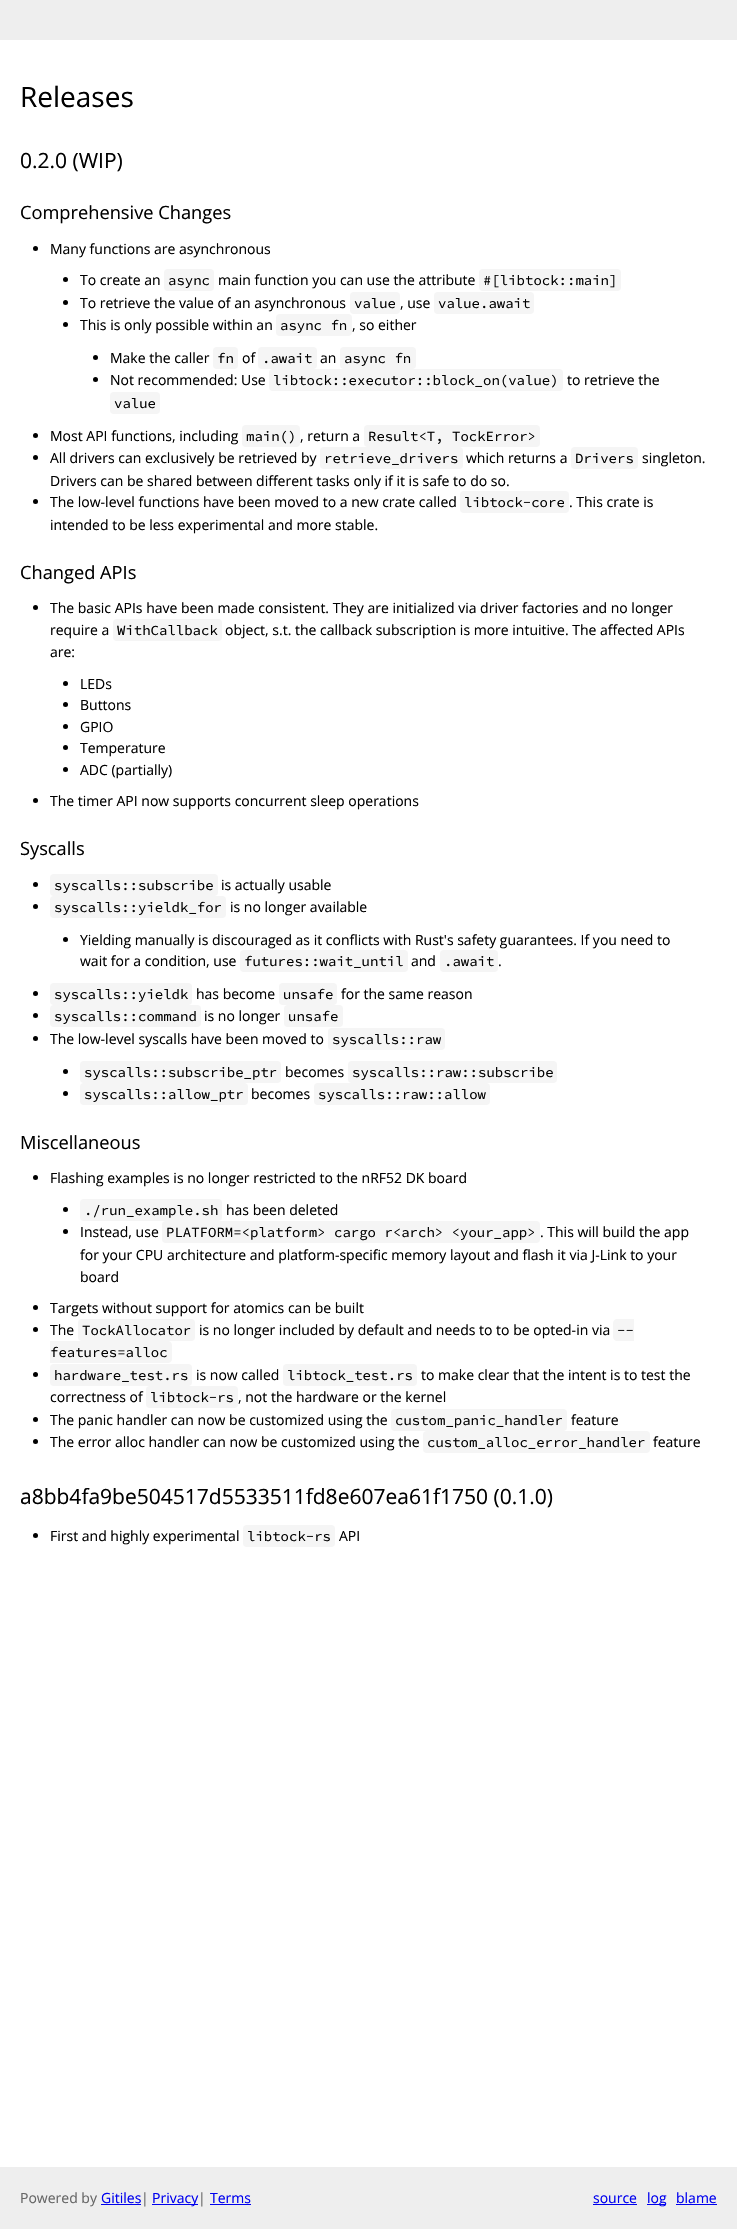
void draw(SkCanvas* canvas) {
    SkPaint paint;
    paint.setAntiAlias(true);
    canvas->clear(0xFFFFFFFF);
    paint.setColor(0xFFEEEEEE);
    canvas->drawRect(SkRect::MakeXYWH(0, 0, 737, 40), paint);
    SkFont font1(fontMgr->matchFamilyStyle("Open Sans", SkFontStyle::Normal()), 28);
    font1.setSubpixel(true);
    paint.setColor(0xFF000000);
    canvas->drawString("Releases", 20, 107, font1, paint);
    SkFont font2(fontMgr->matchFamilyStyle("Open Sans", SkFontStyle::Normal()), 21);
    font2.setSubpixel(true);
    canvas->drawString("0.2.0 (WIP)", 20, 168, font2, paint);
    SkFont font3(fontMgr->matchFamilyStyle("Open Sans", SkFontStyle::Normal()), 18.25f);
    font3.setSubpixel(true);
    canvas->drawString("Comprehensive Changes", 20, 219, font3, paint);
    canvas->drawCircle(35.5f, 248.5f, 2.5f, paint);
    SkFont font4(fontMgr->matchFamilyStyle("Open Sans", SkFontStyle::Normal()), 14);
    font4.setSubpixel(true);
    canvas->drawString("Many functions are asynchronous", 50, 254, font4, paint);
    canvas->drawCircle(65.5f, 279.5f, 2.5f, paint);
    canvas->drawString("To create an", 80, 285, font4, paint);
    paint.setColor(0xFFF5F5F5);
    canvas->drawRoundRect(SkRect::MakeXYWH(164, 269, 50, 22), 4, 4, paint);
    SkFont font5(fontMgr->matchFamilyStyle("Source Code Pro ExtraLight", SkFontStyle(200, SkFontStyle::kNormal_Width, SkFontStyle::kUpright_Slant)), 14);
    font5.setSubpixel(true);
    paint.setColor(0xFF000000);
    canvas->drawString("async", 168, 285, font5, paint);
    canvas->drawString("main function you can use the attribute", 218, 285, font4, paint);
    paint.setColor(0xFFF5F5F5);
    canvas->drawRoundRect(SkRect::MakeXYWH(479, 269, 142, 22), 4, 4, paint);
    paint.setColor(0xFF000000);
    canvas->drawString("#[libtock::main]", 483, 285, font5, paint);
    canvas->drawCircle(65.5f, 302.5f, 2.5f, paint);
    canvas->drawString("To retrieve the value of an asynchronous", 80, 308, font4, paint);
    paint.setColor(0xFFF5F5F5);
    canvas->drawRoundRect(SkRect::MakeXYWH(350, 292, 50, 22), 4, 4, paint);
    paint.setColor(0xFF000000);
    canvas->drawString("value", 354, 308, font5, paint);
    canvas->drawString(", use", 400, 308, font4, paint);
    paint.setColor(0xFFF5F5F5);
    canvas->drawRoundRect(SkRect::MakeXYWH(434, 292, 100, 22), 4, 4, paint);
    paint.setColor(0xFF000000);
    canvas->drawString("value.await", 438, 308, font5, paint);
    canvas->drawCircle(65.5f, 324.5f, 2.5f, paint);
    canvas->drawString("This is only possible within an", 80, 330, font4, paint);
    paint.setColor(0xFFF5F5F5);
    canvas->drawRoundRect(SkRect::MakeXYWH(276, 314, 76, 22), 4, 4, paint);
    paint.setColor(0xFF000000);
    canvas->drawString("async fn", 280, 330, font5, paint);
    canvas->drawString(", so either", 352, 330, font4, paint);
    canvas->drawCircle(95.5f, 357.5f, 2.5f, paint);
    canvas->drawString("Make the caller", 110, 363, font4, paint);
    paint.setColor(0xFFF5F5F5);
    canvas->drawRoundRect(SkRect::MakeXYWH(213, 347, 25, 22), 4, 4, paint);
    paint.setColor(0xFF000000);
    canvas->drawString("fn", 217, 363, font5, paint);
    canvas->drawString("of", 242, 363, font4, paint);
    paint.setColor(0xFFF5F5F5);
    canvas->drawRoundRect(SkRect::MakeXYWH(258, 347, 59, 22), 4, 4, paint);
    paint.setColor(0xFF000000);
    canvas->drawString(".await", 262, 363, font5, paint);
    canvas->drawString("an", 320, 363, font4, paint);
    paint.setColor(0xFFF5F5F5);
    canvas->drawRoundRect(SkRect::MakeXYWH(340, 347, 76, 22), 4, 4, paint);
    paint.setColor(0xFF000000);
    canvas->drawString("async fn", 344, 363, font5, paint);
    canvas->drawCircle(95.5f, 379.5f, 2.5f, paint);
    canvas->drawString("Not recommended: Use", 110, 385, font4, paint);
    paint.setColor(0xFFF5F5F5);
    canvas->drawRoundRect(SkRect::MakeXYWH(269, 369, 294, 22), 4, 4, paint);
    paint.setColor(0xFF000000);
    canvas->drawString("libtock::executor::block_on(value)", 273, 385, font5, paint);
    canvas->drawString("to retrieve the", 567, 385, font4, paint);
    paint.setColor(0xFFF5F5F5);
    canvas->drawRoundRect(SkRect::MakeXYWH(110, 392, 50, 22), 4, 4, paint);
    paint.setColor(0xFF000000);
    canvas->drawString("value", 114, 408, font5, paint);
    canvas->drawCircle(35.5f, 435.5f, 2.5f, paint);
    canvas->drawString("Most API functions, including", 50, 441, font4, paint);
    paint.setColor(0xFFF5F5F5);
    canvas->drawRoundRect(SkRect::MakeXYWH(242, 425, 58, 22), 4, 4, paint);
    paint.setColor(0xFF000000);
    canvas->drawString("main()", 246, 441, font5, paint);
    canvas->drawString(", return a", 300, 441, font4, paint);
    paint.setColor(0xFFF5F5F5);
    canvas->drawRoundRect(SkRect::MakeXYWH(364, 425, 176, 22), 4, 4, paint);
    paint.setColor(0xFF000000);
    canvas->drawString("Result<T, TockError>", 368, 441, font5, paint);
    canvas->drawCircle(35.5f, 457.5f, 2.5f, paint);
    canvas->drawString("All drivers can exclusively be retrieved by", 50, 463, font4, paint);
    paint.setColor(0xFFF5F5F5);
    canvas->drawRoundRect(SkRect::MakeXYWH(320, 447, 143, 22), 4, 4, paint);
    paint.setColor(0xFF000000);
    canvas->drawString("retrieve_drivers", 324, 463, font5, paint);
    canvas->drawString("which returns a", 466, 463, font4, paint);
    paint.setColor(0xFFF5F5F5);
    canvas->drawRoundRect(SkRect::MakeXYWH(571, 447, 67, 22), 4, 4, paint);
    paint.setColor(0xFF000000);
    canvas->drawString("Drivers", 575, 463, font5, paint);
    canvas->drawString("singleton.", 642, 463, font4, paint);
    canvas->drawString("Drivers can be shared between different tasks only if it is safe to do so.", 50, 486, font4, paint);
    canvas->drawCircle(35.5f, 501.5f, 2.5f, paint);
    canvas->drawString("The low-level functions have been moved to a new crate called", 50, 507, font4, paint);
    paint.setColor(0xFFF5F5F5);
    canvas->drawRoundRect(SkRect::MakeXYWH(460, 491, 109, 22), 4, 4, paint);
    paint.setColor(0xFF000000);
    canvas->drawString("libtock-core", 464, 507, font5, paint);
    canvas->drawString(". This crate is", 569, 507, font4, paint);
    canvas->drawString("intended to be less experimental and more stable.", 50, 530, font4, paint);
    canvas->drawString("Changed APIs", 20, 579, font3, paint);
    canvas->drawCircle(35.5f, 607.5f, 2.5f, paint);
    canvas->drawString("The basic APIs have been made consistent. They are initialized via driver factories and no longer", 50, 613, font4, paint);
    canvas->drawString("require a", 50, 635, font4, paint);
    paint.setColor(0xFFF5F5F5);
    canvas->drawRoundRect(SkRect::MakeXYWH(113, 619, 109, 22), 4, 4, paint);
    paint.setColor(0xFF000000);
    canvas->drawString("WithCallback", 117, 635, font5, paint);
    canvas->drawString("object, s.t. the callback subscription is more intuitive. The affected APIs", 225, 635, font4, paint);
    canvas->drawString("are:", 50, 657, font4, paint);
    canvas->drawCircle(65.5f, 683.5f, 2.5f, paint);
    canvas->drawString("LEDs", 80, 689, font4, paint);
    canvas->drawCircle(65.5f, 704.5f, 2.5f, paint);
    canvas->drawString("Buttons", 80, 710, font4, paint);
    canvas->drawCircle(65.5f, 726.5f, 2.5f, paint);
    canvas->drawString("GPIO", 80, 732, font4, paint);
    canvas->drawCircle(65.5f, 747.5f, 2.5f, paint);
    canvas->drawString("Temperature", 80, 753, font4, paint);
    canvas->drawCircle(65.5f, 769.5f, 2.5f, paint);
    canvas->drawString("ADC (partially)", 80, 775, font4, paint);
    canvas->drawCircle(35.5f, 800.5f, 2.5f, paint);
    canvas->drawString("The timer API now supports concurrent sleep operations", 50, 806, font4, paint);
    canvas->drawString("Syscalls", 20, 855, font3, paint);
    canvas->drawCircle(35.5f, 884.5f, 2.5f, paint);
    paint.setColor(0xFFF5F5F5);
    canvas->drawRoundRect(SkRect::MakeXYWH(50, 874, 168, 22), 4, 4, paint);
    paint.setColor(0xFF000000);
    canvas->drawString("syscalls::subscribe", 54, 890, font5, paint);
    canvas->drawString("is actually usable", 221, 890, font4, paint);
    canvas->drawCircle(35.5f, 906.5f, 2.5f, paint);
    paint.setColor(0xFFF5F5F5);
    canvas->drawRoundRect(SkRect::MakeXYWH(50, 896, 176, 22), 4, 4, paint);
    paint.setColor(0xFF000000);
    canvas->drawString("syscalls::yieldk_for", 54, 912, font5, paint);
    canvas->drawString("is no longer available", 230, 912, font4, paint);
    canvas->drawCircle(65.5f, 939.5f, 2.5f, paint);
    canvas->drawString("Yielding manually is discouraged as it conflicts with Rust's safety guarantees. If you need to", 80, 945, font4, paint);
    canvas->drawString("wait for a condition, use", 80, 966, font4, paint);
    paint.setColor(0xFFF5F5F5);
    canvas->drawRoundRect(SkRect::MakeXYWH(240, 950, 168, 22), 4, 4, paint);
    paint.setColor(0xFF000000);
    canvas->drawString("futures::wait_until", 244, 966, font5, paint);
    canvas->drawString("and", 411, 966, font4, paint);
    paint.setColor(0xFFF5F5F5);
    canvas->drawRoundRect(SkRect::MakeXYWH(440, 950, 58, 22), 4, 4, paint);
    paint.setColor(0xFF000000);
    canvas->drawString(".await", 444, 966, font5, paint);
    canvas->drawString(".", 498, 966, font4, paint);
    canvas->drawCircle(35.5f, 993.5f, 2.5f, paint);
    paint.setColor(0xFFF5F5F5);
    canvas->drawRoundRect(SkRect::MakeXYWH(50, 983, 142, 22), 4, 4, paint);
    paint.setColor(0xFF000000);
    canvas->drawString("syscalls::yieldk", 54, 999, font5, paint);
    canvas->drawString("has become", 196, 999, font4, paint);
    paint.setColor(0xFFF5F5F5);
    canvas->drawRoundRect(SkRect::MakeXYWH(279, 983, 58, 22), 4, 4, paint);
    paint.setColor(0xFF000000);
    canvas->drawString("unsafe", 283, 999, font5, paint);
    canvas->drawString("for the same reason", 341, 999, font4, paint);
    canvas->drawCircle(35.5f, 1015.5f, 2.5f, paint);
    paint.setColor(0xFFF5F5F5);
    canvas->drawRoundRect(SkRect::MakeXYWH(50, 1005, 151, 22), 4, 4, paint);
    paint.setColor(0xFF000000);
    canvas->drawString("syscalls::command", 54, 1021, font5, paint);
    canvas->drawString("is no longer", 204, 1021, font4, paint);
    paint.setColor(0xFFF5F5F5);
    canvas->drawRoundRect(SkRect::MakeXYWH(284, 1005, 59, 22), 4, 4, paint);
    paint.setColor(0xFF000000);
    canvas->drawString("unsafe", 288, 1021, font5, paint);
    canvas->drawCircle(35.5f, 1038.5f, 2.5f, paint);
    canvas->drawString("The low-level syscalls have been moved to", 50, 1044, font4, paint);
    paint.setColor(0xFFF5F5F5);
    canvas->drawRoundRect(SkRect::MakeXYWH(328, 1028, 117, 22), 4, 4, paint);
    paint.setColor(0xFF000000);
    canvas->drawString("syscalls::raw", 332, 1044, font5, paint);
    canvas->drawCircle(65.5f, 1071.5f, 2.5f, paint);
    paint.setColor(0xFFF5F5F5);
    canvas->drawRoundRect(SkRect::MakeXYWH(80, 1061, 201, 22), 4, 4, paint);
    paint.setColor(0xFF000000);
    canvas->drawString("syscalls::subscribe_ptr", 84, 1077, font5, paint);
    canvas->drawString("becomes", 285, 1077, font4, paint);
    paint.setColor(0xFFF5F5F5);
    canvas->drawRoundRect(SkRect::MakeXYWH(348, 1061, 209, 22), 4, 4, paint);
    paint.setColor(0xFF000000);
    canvas->drawString("syscalls::raw::subscribe", 352, 1077, font5, paint);
    canvas->drawCircle(65.5f, 1093.5f, 2.5f, paint);
    paint.setColor(0xFFF5F5F5);
    canvas->drawRoundRect(SkRect::MakeXYWH(80, 1083, 168, 22), 4, 4, paint);
    paint.setColor(0xFF000000);
    canvas->drawString("syscalls::allow_ptr", 84, 1099, font5, paint);
    canvas->drawString("becomes", 251, 1099, font4, paint);
    paint.setColor(0xFFF5F5F5);
    canvas->drawRoundRect(SkRect::MakeXYWH(314, 1083, 176, 22), 4, 4, paint);
    paint.setColor(0xFF000000);
    canvas->drawString("syscalls::raw::allow", 318, 1099, font5, paint);
    canvas->drawString("Miscellaneous", 20, 1149, font3, paint);
    canvas->drawCircle(35.5f, 1177.5f, 2.5f, paint);
    canvas->drawString("Flashing examples is no longer restricted to the nRF52 DK board", 50, 1183, font4, paint);
    canvas->drawCircle(65.5f, 1209.5f, 2.5f, paint);
    paint.setColor(0xFFF5F5F5);
    canvas->drawRoundRect(SkRect::MakeXYWH(80, 1199, 142, 22), 4, 4, paint);
    paint.setColor(0xFF000000);
    canvas->drawString("./run_example.sh", 84, 1215, font5, paint);
    canvas->drawString("has been deleted", 226, 1215, font4, paint);
    canvas->drawCircle(65.5f, 1231.5f, 2.5f, paint);
    canvas->drawString("Instead, use", 80, 1237, font4, paint);
    paint.setColor(0xFFF5F5F5);
    canvas->drawRoundRect(SkRect::MakeXYWH(162, 1221, 378, 22), 4, 4, paint);
    paint.setColor(0xFF000000);
    canvas->drawString("PLATFORM=<platform> cargo r<arch> <your_app>", 166, 1237, font5, paint);
    canvas->drawString(". This will build the app", 540, 1237, font4, paint);
    canvas->drawString("for your CPU architecture and platform-specific memory layout and flash it via J-Link to your", 80, 1260, font4, paint);
    canvas->drawString("board", 80, 1282, font4, paint);
    canvas->drawCircle(35.5f, 1307.5f, 2.5f, paint);
    canvas->drawString("Targets without support for atomics can be built", 50, 1313, font4, paint);
    canvas->drawCircle(35.5f, 1329.5f, 2.5f, paint);
    canvas->drawString("The", 50, 1335, font4, paint);
    paint.setColor(0xFFF5F5F5);
    canvas->drawRoundRect(SkRect::MakeXYWH(78, 1319, 117, 22), 4, 4, paint);
    paint.setColor(0xFF000000);
    canvas->drawString("TockAllocator", 82, 1335, font5, paint);
    canvas->drawString("is no longer included by default and needs to to be opted-in via", 199, 1335, font4, paint);
    paint.setColor(0xFFF5F5F5);
    canvas->drawPath(SkPathBuilder().moveTo(617, 1319).lineTo(634, 1319).lineTo(634, 1341).lineTo(617, 1341).cubicTo(615, 1341, 613, 1339, 613, 1337).lineTo(613, 1323).cubicTo(613, 1321, 615, 1319, 617, 1319).close().detach(), paint);
    paint.setColor(0xFF000000);
    canvas->drawString("--", 617, 1335, font5, paint);
    paint.setColor(0xFFF5F5F5);
    canvas->drawPath(SkPathBuilder().moveTo(50, 1341).lineTo(168, 1341).cubicTo(170, 1341, 172, 1343, 172, 1345).lineTo(172, 1359).cubicTo(172, 1361, 170, 1363, 168, 1363).lineTo(50, 1363).close().detach(), paint);
    paint.setColor(0xFF000000);
    canvas->drawString("features=alloc", 50, 1357, font5, paint);
    canvas->drawCircle(35.5f, 1374.5f, 2.5f, paint);
    paint.setColor(0xFFF5F5F5);
    canvas->drawRoundRect(SkRect::MakeXYWH(50, 1364, 142, 22), 4, 4, paint);
    paint.setColor(0xFF000000);
    canvas->drawString("hardware_test.rs", 54, 1380, font5, paint);
    canvas->drawString("is now called", 196, 1380, font4, paint);
    paint.setColor(0xFFF5F5F5);
    canvas->drawRoundRect(SkRect::MakeXYWH(283, 1364, 134, 22), 4, 4, paint);
    paint.setColor(0xFF000000);
    canvas->drawString("libtock_test.rs", 287, 1380, font5, paint);
    canvas->drawString("to make clear that the intent is to test the", 421, 1380, font4, paint);
    canvas->drawString("correctness of", 50, 1402, font4, paint);
    paint.setColor(0xFFF5F5F5);
    canvas->drawRoundRect(SkRect::MakeXYWH(146, 1386, 92, 22), 4, 4, paint);
    paint.setColor(0xFF000000);
    canvas->drawString("libtock-rs", 150, 1402, font5, paint);
    canvas->drawString(", not the hardware or the kernel", 238, 1402, font4, paint);
    canvas->drawCircle(35.5f, 1419.5f, 2.5f, paint);
    canvas->drawString("The panic handler can now be customized using the", 50, 1425, font4, paint);
    paint.setColor(0xFFF5F5F5);
    canvas->drawRoundRect(SkRect::MakeXYWH(391, 1409, 176, 22), 4, 4, paint);
    paint.setColor(0xFF000000);
    canvas->drawString("custom_panic_handler", 395, 1425, font5, paint);
    canvas->drawString("feature", 571, 1425, font4, paint);
    canvas->drawCircle(35.5f, 1441.5f, 2.5f, paint);
    canvas->drawString("The error alloc handler can now be customized using the", 50, 1447, font4, paint);
    paint.setColor(0xFFF5F5F5);
    canvas->drawRoundRect(SkRect::MakeXYWH(423, 1431, 227, 22), 4, 4, paint);
    paint.setColor(0xFF000000);
    canvas->drawString("custom_alloc_error_handler", 427, 1447, font5, paint);
    canvas->drawString("feature", 653, 1447, font4, paint);
    canvas->drawString("a8bb4fa9be504517d5533511fd8e607ea61f1750 (0.1.0)", 20, 1504, font2, paint);
    canvas->drawCircle(35.5f, 1535.5f, 2.5f, paint);
    canvas->drawString("First and highly experimental", 50, 1541, font4, paint);
    paint.setColor(0xFFF5F5F5);
    canvas->drawRoundRect(SkRect::MakeXYWH(243, 1525, 92, 22), 4, 4, paint);
    paint.setColor(0xFF000000);
    canvas->drawString("libtock-rs", 247, 1541, font5, paint);
    canvas->drawString("API", 339, 1541, font4, paint);
    paint.setColor(0xFFEEEEEE);
    canvas->drawRect(SkRect::MakeXYWH(0, 2167, 737, 62), paint);
    paint.setColor(0xFF666666);
    canvas->drawString("Powered by", 20, 2203, font4, paint);
    paint.setColor(0xFF0000EE);
    canvas->drawString("Gitiles", 101, 2203, font4, paint);
    canvas->drawRect(SkRect::MakeXYWH(101, 2204, 40, 1), paint);
    paint.setColor(0xFF666666);
    canvas->drawString("|", 141, 2203, font4, paint);
    paint.setColor(0xFF0000EE);
    canvas->drawRect(SkRect::MakeXYWH(152, 2204, 46, 1), paint);
    canvas->drawString("Privacy", 152, 2203, font4, paint);
    paint.setColor(0xFF666666);
    canvas->drawString("|", 198, 2203, font4, paint);
    paint.setColor(0xFF0000EE);
    canvas->drawString("Terms", 210, 2203, font4, paint);
    canvas->drawRect(SkRect::MakeXYWH(210, 2204, 41, 1), paint);
    canvas->drawString("source", 593, 2203, font4, paint);
    canvas->drawRect(SkRect::MakeXYWH(593, 2204, 44, 1), paint);
    canvas->drawRect(SkRect::MakeXYWH(647, 2204, 19, 1), paint);
    canvas->drawString("log", 647, 2203, font4, paint);
    canvas->drawString("blame", 676, 2203, font4, paint);
    canvas->drawRect(SkRect::MakeXYWH(676, 2204, 41, 1), paint);
}
